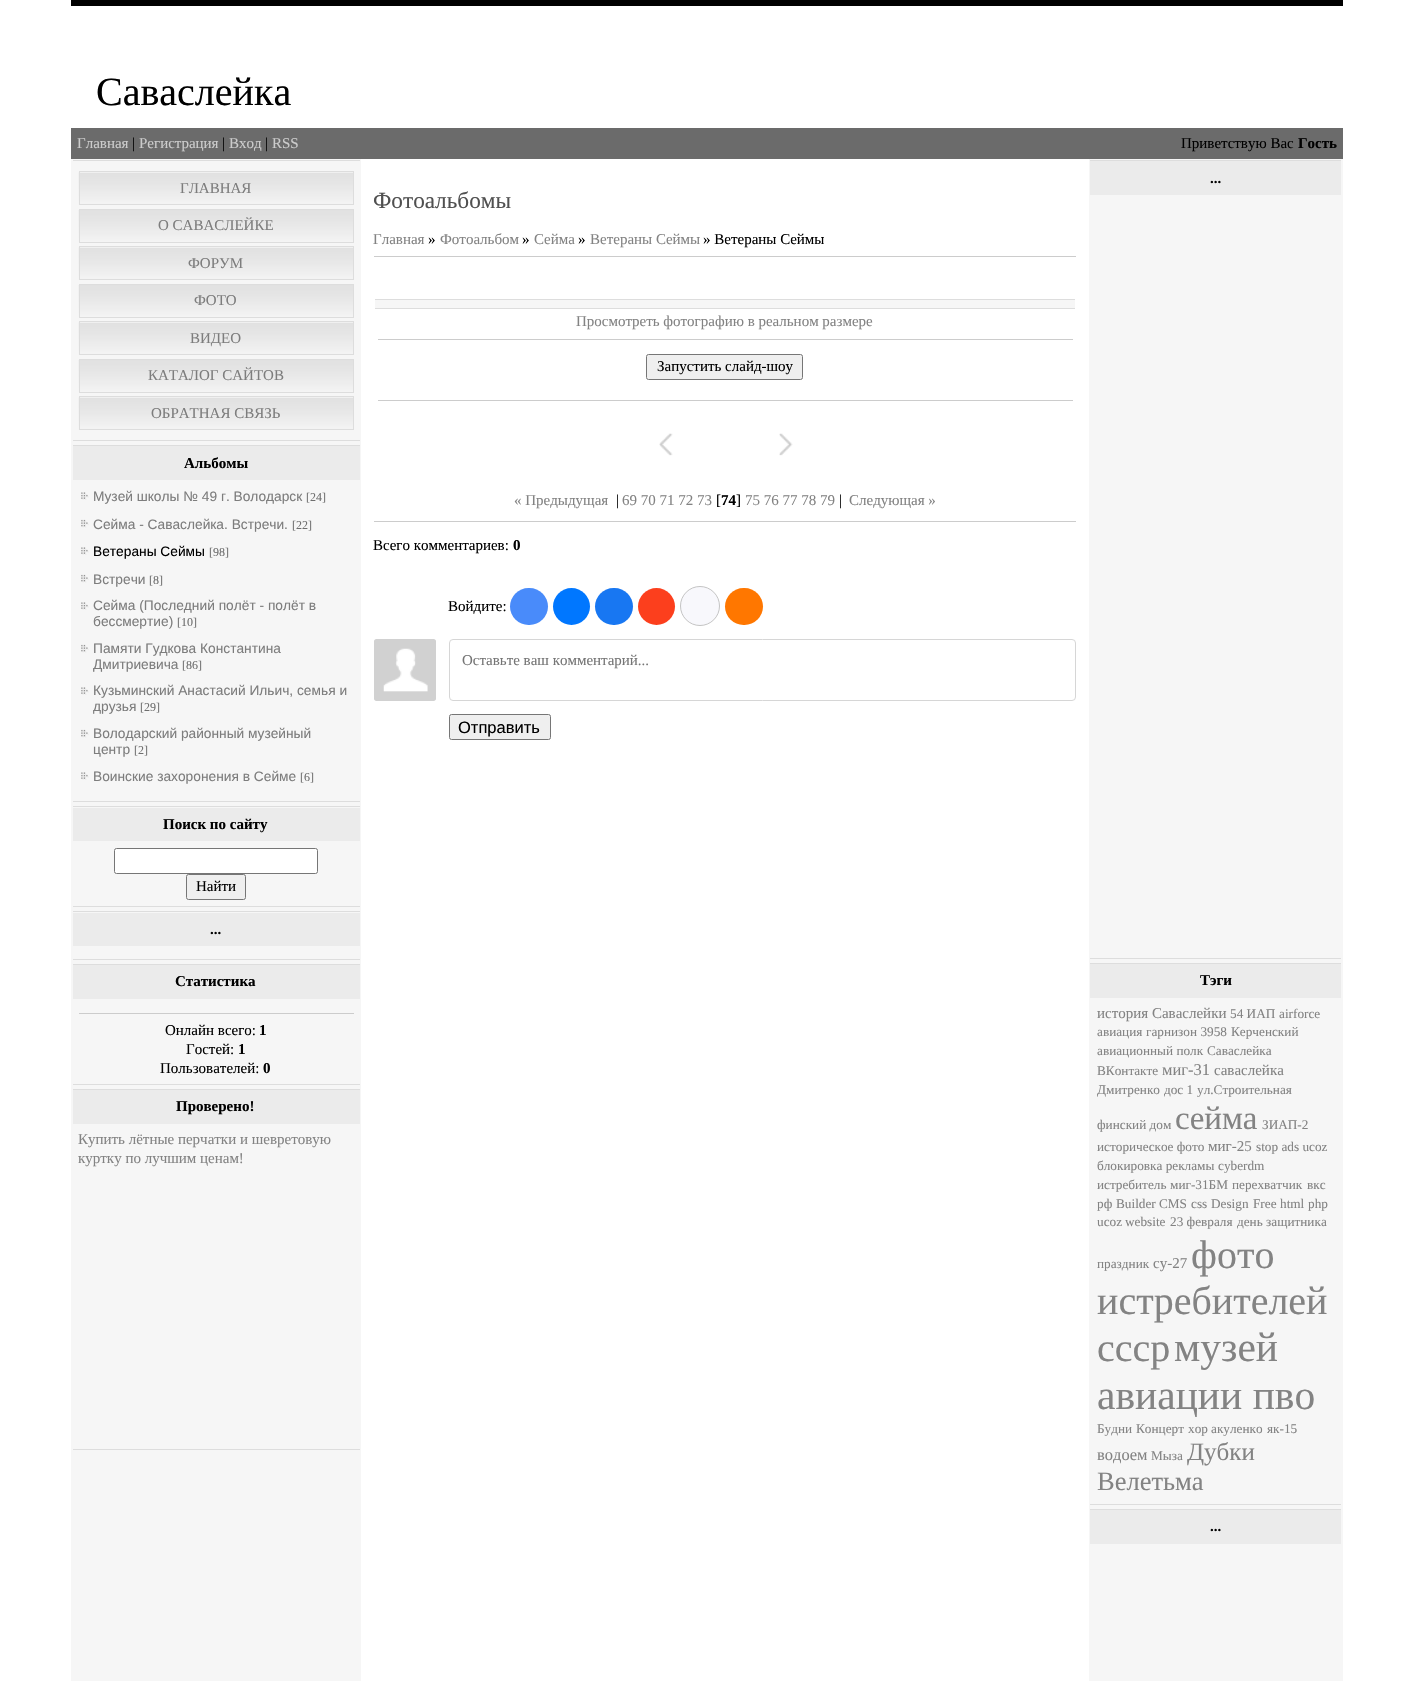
void draw(SkCanvas* canvas) {
    SkPaint paint;
    paint.setAntiAlias(true);
    canvas->clear(0xFFFFFFFF);
    paint.setColor(0xFF000000);
    canvas->drawRect(SkRect::MakeXYWH(71, 0, 1272, 6), paint);
    SkFont font1(fontMgr->matchFamilyStyle("Liberation Serif", SkFontStyle::Normal()), 40);
    font1.setSubpixel(true);
    canvas->drawString("Саваслейка", 96, 105, font1, paint);
    paint.setColor(0xFF6B6B6B);
    canvas->drawRect(SkRect::MakeXYWH(71, 128, 1272, 31), paint);
    SkFont font2(fontMgr->matchFamilyStyle("Liberation Serif", SkFontStyle::Normal()), 15);
    font2.setSubpixel(true);
    paint.setColor(0xFFCCCCCC);
    canvas->drawString("Главная", 77, 148, font2, paint);
    paint.setColor(0xFF000000);
    canvas->drawString("|", 132, 148, font2, paint);
    paint.setColor(0xFFCCCCCC);
    canvas->drawString("Регистрация", 139, 148, font2, paint);
    paint.setColor(0xFF000000);
    canvas->drawString("|", 222, 148, font2, paint);
    paint.setColor(0xFFCCCCCC);
    canvas->drawString("Вход", 229, 148, font2, paint);
    paint.setColor(0xFF000000);
    canvas->drawString("|", 265, 148, font2, paint);
    paint.setColor(0xFFCCCCCC);
    canvas->drawString("RSS", 272, 148, font2, paint);
    paint.setColor(0xFF000000);
    canvas->drawString("Приветствую Вас", 1181, 148, font2, paint);
    SkFont font3(fontMgr->matchFamilyStyle("Liberation Serif", SkFontStyle::Bold()), 15);
    font3.setSubpixel(true);
    canvas->drawString("Гость", 1298, 148, font3, paint);
    paint.setColor(0xFFF6F6F6);
    canvas->drawRect(SkRect::MakeXYWH(71, 159, 290, 1522), paint);
    paint.setColor(0xFFDDDDDD);
    canvas->drawRect(SkRect::MakeXYWH(73, 160, 287, 1), paint);
    canvas->drawRect(SkRect::MakeXYWH(73, 440, 287, 1), paint);
    paint.setColor(0xFFFFFFFF);
    canvas->drawRect(SkRect::MakeXYWH(80, 172, 273, 1), paint);
    canvas->drawImageRect(SkImages::DeferredFromEncodedData(SkData::MakeFromFileName("img1.png")), SkRect::MakeXYWH(78, 172, 275, 33), SkSamplingOptions());
    paint.setStyle(SkPaint::kStroke_Style);
    paint.setStrokeWidth(1);
    paint.setColor(0xFFDDDDDD);
    canvas->drawRect(SkRect::MakeXYWH(79.5f, 171.5f, 274, 33), paint);
    paint.setStyle(SkPaint::kFill_Style);
    paint.setColor(0xFF7D7D7D);
    canvas->drawString("ГЛАВНАЯ", 180, 193, font2, paint);
    canvas->drawImageRect(SkImages::DeferredFromEncodedData(SkData::MakeFromFileName("img2.png")), SkRect::MakeXYWH(78, 210, 275, 33), SkSamplingOptions());
    paint.setStyle(SkPaint::kStroke_Style);
    paint.setColor(0xFFDDDDDD);
    canvas->drawRect(SkRect::MakeXYWH(79.5f, 209.5f, 274, 33), paint);
    paint.setStyle(SkPaint::kFill_Style);
    paint.setColor(0xFF7D7D7D);
    canvas->drawString("О САВАСЛЕЙКЕ", 158, 230, font2, paint);
    paint.setColor(0xFFFFFFFF);
    canvas->drawRect(SkRect::MakeXYWH(80, 247, 273, 1), paint);
    canvas->drawImageRect(SkImages::DeferredFromEncodedData(SkData::MakeFromFileName("img1.png")), SkRect::MakeXYWH(78, 247, 275, 33), SkSamplingOptions());
    paint.setStyle(SkPaint::kStroke_Style);
    paint.setColor(0xFFDDDDDD);
    canvas->drawRect(SkRect::MakeXYWH(79.5f, 246.5f, 274, 33), paint);
    paint.setStyle(SkPaint::kFill_Style);
    paint.setColor(0xFF7D7D7D);
    canvas->drawString("ФОРУМ", 188, 268, font2, paint);
    canvas->drawImageRect(SkImages::DeferredFromEncodedData(SkData::MakeFromFileName("img2.png")), SkRect::MakeXYWH(78, 285, 275, 33), SkSamplingOptions());
    paint.setStyle(SkPaint::kStroke_Style);
    paint.setColor(0xFFDDDDDD);
    canvas->drawRect(SkRect::MakeXYWH(79.5f, 284.5f, 274, 33), paint);
    paint.setStyle(SkPaint::kFill_Style);
    paint.setColor(0xFF7D7D7D);
    canvas->drawString("ФОТО", 194, 305, font2, paint);
    paint.setColor(0xFFFFFFFF);
    canvas->drawRect(SkRect::MakeXYWH(80, 322, 273, 1), paint);
    canvas->drawImageRect(SkImages::DeferredFromEncodedData(SkData::MakeFromFileName("img1.png")), SkRect::MakeXYWH(78, 322, 275, 33), SkSamplingOptions());
    paint.setStyle(SkPaint::kStroke_Style);
    paint.setColor(0xFFDDDDDD);
    canvas->drawRect(SkRect::MakeXYWH(79.5f, 321.5f, 274, 33), paint);
    paint.setStyle(SkPaint::kFill_Style);
    paint.setColor(0xFF7D7D7D);
    canvas->drawString("ВИДЕО", 190, 343, font2, paint);
    canvas->drawImageRect(SkImages::DeferredFromEncodedData(SkData::MakeFromFileName("img2.png")), SkRect::MakeXYWH(78, 360, 275, 33), SkSamplingOptions());
    paint.setStyle(SkPaint::kStroke_Style);
    paint.setColor(0xFFDDDDDD);
    canvas->drawRect(SkRect::MakeXYWH(79.5f, 359.5f, 274, 33), paint);
    paint.setStyle(SkPaint::kFill_Style);
    paint.setColor(0xFF7D7D7D);
    canvas->drawString("КАТАЛОГ САЙТОВ", 148, 380, font2, paint);
    paint.setColor(0xFFFFFFFF);
    canvas->drawRect(SkRect::MakeXYWH(80, 397, 273, 1), paint);
    canvas->drawImageRect(SkImages::DeferredFromEncodedData(SkData::MakeFromFileName("img1.png")), SkRect::MakeXYWH(78, 397, 275, 33), SkSamplingOptions());
    paint.setStyle(SkPaint::kStroke_Style);
    paint.setColor(0xFFDDDDDD);
    canvas->drawRect(SkRect::MakeXYWH(79.5f, 396.5f, 274, 33), paint);
    paint.setStyle(SkPaint::kFill_Style);
    paint.setColor(0xFF7D7D7D);
    canvas->drawString("ОБРАТНАЯ СВЯЗЬ", 151, 418, font2, paint);
    paint.setColor(0xFFDDDDDD);
    canvas->drawRect(SkRect::MakeXYWH(73, 445, 287, 1), paint);
    canvas->drawRect(SkRect::MakeXYWH(73, 801, 287, 1), paint);
    paint.setColor(0xFFEBEBEB);
    canvas->drawRect(SkRect::MakeXYWH(73, 446, 287, 34), paint);
    paint.setColor(0xFF000000);
    canvas->drawString("Альбомы", 184, 468, font3, paint);
    canvas->drawImageRect(SkImages::DeferredFromEncodedData(SkData::MakeFromFileName("img3.png")), SkRect::MakeXYWH(81, 492, 8, 8), SkSamplingOptions());
    SkFont font4(fontMgr->matchFamilyStyle("Liberation Sans", SkFontStyle::Normal()), 13.75f);
    font4.setSubpixel(true);
    paint.setColor(0xFF7D7D7D);
    canvas->drawString("Музей школы № 49 г. Володарск", 93, 501, font4, paint);
    SkFont font5(fontMgr->matchFamilyStyle("Liberation Serif", SkFontStyle::Normal()), 12);
    font5.setSubpixel(true);
    paint.setColor(0xFF6E6E6E);
    canvas->drawString("[24]", 306, 501, font5, paint);
    canvas->drawImageRect(SkImages::DeferredFromEncodedData(SkData::MakeFromFileName("img4.png")), SkRect::MakeXYWH(81, 519, 8, 9), SkSamplingOptions());
    paint.setColor(0xFF7D7D7D);
    canvas->drawString("Сейма - Саваслейка. Встречи.", 93, 529, font4, paint);
    paint.setColor(0xFF6E6E6E);
    canvas->drawString("[22]", 292, 529, font5, paint);
    canvas->drawImageRect(SkImages::DeferredFromEncodedData(SkData::MakeFromFileName("img3.png")), SkRect::MakeXYWH(81, 547, 8, 8), SkSamplingOptions());
    paint.setColor(0xFF000000);
    canvas->drawString("Ветераны Сеймы", 93, 556, font4, paint);
    paint.setColor(0xFF6E6E6E);
    canvas->drawString("[98]", 209, 556, font5, paint);
    canvas->drawImageRect(SkImages::DeferredFromEncodedData(SkData::MakeFromFileName("img4.png")), SkRect::MakeXYWH(81, 574, 8, 9), SkSamplingOptions());
    paint.setColor(0xFF7D7D7D);
    canvas->drawString("Встречи", 93, 584, font4, paint);
    paint.setColor(0xFF6E6E6E);
    canvas->drawString("[8]", 149, 584, font5, paint);
    canvas->drawImageRect(SkImages::DeferredFromEncodedData(SkData::MakeFromFileName("img3.png")), SkRect::MakeXYWH(81, 602, 8, 8), SkSamplingOptions());
    paint.setColor(0xFF7D7D7D);
    canvas->drawString("Сейма (Последний полёт - полёт в", 93, 610, font4, paint);
    canvas->drawString("бессмертие)", 93, 626, font4, paint);
    paint.setColor(0xFF6E6E6E);
    canvas->drawString("[10]", 177, 626, font5, paint);
    canvas->drawImageRect(SkImages::DeferredFromEncodedData(SkData::MakeFromFileName("img4.png")), SkRect::MakeXYWH(81, 644, 8, 9), SkSamplingOptions());
    paint.setColor(0xFF7D7D7D);
    canvas->drawString("Памяти Гудкова Константина", 93, 653, font4, paint);
    canvas->drawString("Дмитриевича", 93, 669, font4, paint);
    paint.setColor(0xFF6E6E6E);
    canvas->drawString("[86]", 182, 669, font5, paint);
    canvas->drawImageRect(SkImages::DeferredFromEncodedData(SkData::MakeFromFileName("img3.png")), SkRect::MakeXYWH(81, 687, 8, 8), SkSamplingOptions());
    paint.setColor(0xFF7D7D7D);
    canvas->drawString("Кузьминский Анастасий Ильич, семья и", 93, 695, font4, paint);
    canvas->drawString("друзья", 93, 711, font4, paint);
    paint.setColor(0xFF6E6E6E);
    canvas->drawString("[29]", 140, 711, font5, paint);
    canvas->drawImageRect(SkImages::DeferredFromEncodedData(SkData::MakeFromFileName("img4.png")), SkRect::MakeXYWH(81, 729, 8, 9), SkSamplingOptions());
    paint.setColor(0xFF7D7D7D);
    canvas->drawString("Володарский районный музейный", 93, 738, font4, paint);
    canvas->drawString("центр", 93, 754, font4, paint);
    paint.setColor(0xFF6E6E6E);
    canvas->drawString("[2]", 134, 754, font5, paint);
    canvas->drawImageRect(SkImages::DeferredFromEncodedData(SkData::MakeFromFileName("img3.png")), SkRect::MakeXYWH(81, 772, 8, 8), SkSamplingOptions());
    paint.setColor(0xFF7D7D7D);
    canvas->drawString("Воинские захоронения в Сейме", 93, 781, font4, paint);
    paint.setColor(0xFF6E6E6E);
    canvas->drawString("[6]", 300, 781, font5, paint);
    paint.setColor(0xFFDDDDDD);
    canvas->drawRect(SkRect::MakeXYWH(73, 806, 287, 1), paint);
    canvas->drawRect(SkRect::MakeXYWH(73, 906, 287, 1), paint);
    paint.setColor(0xFFEBEBEB);
    canvas->drawRect(SkRect::MakeXYWH(73, 808, 287, 33), paint);
    paint.setColor(0xFF000000);
    canvas->drawString("Поиск по сайту", 163, 829, font3, paint);
    paint.setColor(0xFFFFFFFF);
    canvas->drawRoundRect(SkRect::MakeXYWH(114.5f, 848.5f, 203, 25), 2, 2, paint);
    paint.setStyle(SkPaint::kStroke_Style);
    paint.setColor(0xFF767676);
    canvas->drawRoundRect(SkRect::MakeXYWH(114.5f, 848.5f, 203, 25), 2, 2, paint);
    paint.setStyle(SkPaint::kFill_Style);
    paint.setColor(0xFFEFEFEF);
    canvas->drawRoundRect(SkRect::MakeXYWH(186.5f, 874.5f, 59, 25), 2, 2, paint);
    paint.setStyle(SkPaint::kStroke_Style);
    paint.setColor(0xFF767676);
    canvas->drawRoundRect(SkRect::MakeXYWH(186.5f, 874.5f, 59, 25), 2, 2, paint);
    paint.setStyle(SkPaint::kFill_Style);
    paint.setColor(0xFF000000);
    canvas->drawString("Найти", 196, 891, font2, paint);
    paint.setColor(0xFFDDDDDD);
    canvas->drawRect(SkRect::MakeXYWH(73, 911, 287, 1), paint);
    canvas->drawRect(SkRect::MakeXYWH(73, 959, 287, 1), paint);
    paint.setColor(0xFFEBEBEB);
    canvas->drawRect(SkRect::MakeXYWH(73, 913, 287, 33), paint);
    paint.setColor(0xFF000000);
    canvas->drawString("...", 210, 934, font3, paint);
    paint.setColor(0xFFDDDDDD);
    canvas->drawRect(SkRect::MakeXYWH(73, 964, 287, 1), paint);
    canvas->drawRect(SkRect::MakeXYWH(73, 1084, 287, 1), paint);
    paint.setColor(0xFFEBEBEB);
    canvas->drawRect(SkRect::MakeXYWH(73, 965, 287, 34), paint);
    paint.setColor(0xFF000000);
    canvas->drawString("Статистика", 175, 986, font3, paint);
    paint.setColor(0xFFCCCCCC);
    canvas->drawRect(SkRect::MakeXYWH(79, 1013, 275, 1), paint);
    paint.setColor(0xFF000000);
    canvas->drawString("Онлайн всего:", 165, 1035, font2, paint);
    canvas->drawString("1", 259, 1035, font3, paint);
    canvas->drawString("Гостей:", 186, 1054, font2, paint);
    canvas->drawString("1", 238, 1054, font3, paint);
    canvas->drawString("Пользователей:", 160, 1073, font2, paint);
    canvas->drawString("0", 263, 1073, font3, paint);
    paint.setColor(0xFFDDDDDD);
    canvas->drawRect(SkRect::MakeXYWH(73, 1089, 287, 1), paint);
    canvas->drawRect(SkRect::MakeXYWH(73, 1449, 287, 1), paint);
    paint.setColor(0xFFEBEBEB);
    canvas->drawRect(SkRect::MakeXYWH(73, 1090, 287, 34), paint);
    paint.setColor(0xFF000000);
    canvas->drawString("Проверено!", 176, 1111, font3, paint);
    paint.setColor(0xFF838383);
    canvas->drawString("Купить лётные перчатки и шевретовую", 78, 1144, font2, paint);
    canvas->drawString("куртку по лучшим ценам!", 78, 1163, font2, paint);
    SkFont font6(fontMgr->matchFamilyStyle("Liberation Serif", SkFontStyle::Normal()), 23.25f);
    font6.setSubpixel(true);
    paint.setColor(0xFF505050);
    canvas->drawString("Фотоальбомы", 373, 208, font6, paint);
    paint.setColor(0xFF838383);
    canvas->drawString("Главная", 373, 244, font2, paint);
    paint.setColor(0xFF000000);
    canvas->drawString("»", 428, 244, font2, paint);
    paint.setColor(0xFF838383);
    canvas->drawString("Фотоальбом", 440, 244, font2, paint);
    paint.setColor(0xFF000000);
    canvas->drawString("»", 522, 244, font2, paint);
    paint.setColor(0xFF838383);
    canvas->drawString("Сейма", 534, 244, font2, paint);
    paint.setColor(0xFF000000);
    canvas->drawString("»", 578, 244, font2, paint);
    paint.setColor(0xFF838383);
    canvas->drawString("Ветераны Сеймы", 590, 244, font2, paint);
    paint.setColor(0xFF000000);
    canvas->drawString("» Ветераны Сеймы", 703, 244, font2, paint);
    paint.setColor(0xFFCCCCCC);
    canvas->drawRect(SkRect::MakeXYWH(374, 256, 702, 1), paint);
    paint.setColor(0xFFF6F6F6);
    canvas->drawRect(SkRect::MakeXYWH(375, 300, 700, 8), paint);
    paint.setColor(0xFFDDDDDD);
    canvas->drawRect(SkRect::MakeXYWH(375, 299, 700, 1), paint);
    canvas->drawRect(SkRect::MakeXYWH(375, 308, 700, 1), paint);
    paint.setColor(0xFF838383);
    canvas->drawString("Просмотреть фотографию в реальном размере", 576, 326, font2, paint);
    paint.setColor(0xFFCCCCCC);
    canvas->drawRect(SkRect::MakeXYWH(378, 339, 695, 1), paint);
    paint.setColor(0xFFEFEFEF);
    canvas->drawRoundRect(SkRect::MakeXYWH(646.5f, 354.5f, 156, 25), 2, 2, paint);
    paint.setStyle(SkPaint::kStroke_Style);
    paint.setColor(0xFF767676);
    canvas->drawRoundRect(SkRect::MakeXYWH(646.5f, 354.5f, 156, 25), 2, 2, paint);
    paint.setStyle(SkPaint::kFill_Style);
    paint.setColor(0xFF000000);
    canvas->drawString("Запустить слайд-шоу", 657, 371, font2, paint);
    paint.setColor(0xFFCCCCCC);
    canvas->drawRect(SkRect::MakeXYWH(378, 400, 695, 1), paint);
    canvas->drawImageRect(SkImages::DeferredFromEncodedData(SkData::MakeFromFileName("img5.png")), SkRect::MakeXYWH(659, 433, 14, 23), SkSamplingOptions());
    canvas->drawImageRect(SkImages::DeferredFromEncodedData(SkData::MakeFromFileName("img6.png")), SkRect::MakeXYWH(779, 433, 14, 23), SkSamplingOptions());
    paint.setColor(0xFF838383);
    canvas->drawString("« Предыдущая", 514, 505, font2, paint);
    paint.setColor(0xFF000000);
    canvas->drawString("|", 616, 505, font2, paint);
    paint.setColor(0xFF838383);
    canvas->drawString("69 70 71 72 73", 622, 505, font2, paint);
    paint.setColor(0xFF000000);
    canvas->drawString("[", 716, 505, font2, paint);
    canvas->drawString("74", 721, 505, font3, paint);
    canvas->drawString("]", 736, 505, font2, paint);
    paint.setColor(0xFF838383);
    canvas->drawString("75 76 77 78 79", 745, 505, font2, paint);
    paint.setColor(0xFF000000);
    canvas->drawString("|", 839, 505, font2, paint);
    paint.setColor(0xFF838383);
    canvas->drawString("Следующая »", 849, 505, font2, paint);
    paint.setColor(0xFFCCCCCC);
    canvas->drawRect(SkRect::MakeXYWH(374, 521, 702, 1), paint);
    paint.setColor(0xFF000000);
    canvas->drawString("Всего комментариев:", 373, 550, font2, paint);
    canvas->drawString("0", 513, 550, font3, paint);
    canvas->drawString("Войдите:", 448, 611, font2, paint);
    paint.setColor(0xFF498BFA);
    canvas->drawRoundRect(SkRect::MakeXYWH(510, 588, 38, 37), 18.5f, 18.5f, paint);
    paint.setColor(0xFF0077FF);
    canvas->drawCircle(571.5f, 606.5f, 18.5f, paint);
    paint.setColor(0xFF1877F2);
    canvas->drawRoundRect(SkRect::MakeXYWH(595, 588, 38, 37), 18.5f, 18.5f, paint);
    paint.setColor(0xFFFC3F1D);
    canvas->drawCircle(656.5f, 606.5f, 18.5f, paint);
    paint.setColor(0xFFF8F8FC);
    canvas->drawCircle(700, 606, 19.5f, paint);
    paint.setStyle(SkPaint::kStroke_Style);
    paint.setColor(0xFFC4C4C4);
    canvas->drawCircle(700, 606, 19.5f, paint);
    paint.setStyle(SkPaint::kFill_Style);
    paint.setColor(0xFFFF7700);
    canvas->drawRoundRect(SkRect::MakeXYWH(725, 588, 38, 37), 18.5f, 18.5f, paint);
    canvas->drawImageRect(SkImages::DeferredFromEncodedData(SkData::MakeFromFileName("img7.png")), SkRect::MakeXYWH(374, 639, 62, 62), SkSamplingOptions());
    paint.setStyle(SkPaint::kStroke_Style);
    paint.setColor(0xFFD6D6D6);
    canvas->drawRoundRect(SkRect::MakeXYWH(449.5f, 639.5f, 626, 61), 3.5f, 3.5f, paint);
    paint.setStyle(SkPaint::kFill_Style);
    paint.setColor(0xFF757575);
    canvas->drawString("Оставьте ваш комментарий...", 462, 665, font2, paint);
    paint.setColor(0xFFEFEFEF);
    canvas->drawRoundRect(SkRect::MakeXYWH(449.5f, 714.5f, 101, 25), 2, 2, paint);
    paint.setStyle(SkPaint::kStroke_Style);
    paint.setColor(0xFF767676);
    canvas->drawRoundRect(SkRect::MakeXYWH(449.5f, 714.5f, 101, 25), 2, 2, paint);
    SkFont font7(fontMgr->matchFamilyStyle("Liberation Sans", SkFontStyle::Normal()), 16.5f);
    font7.setSubpixel(true);
    paint.setStyle(SkPaint::kFill_Style);
    paint.setColor(0xFF000000);
    canvas->drawString("Отправить", 458, 733, font7, paint);
    paint.setColor(0xFFF6F6F6);
    canvas->drawRect(SkRect::MakeXYWH(1089, 159, 254, 1522), paint);
    paint.setColor(0xFFDDDDDD);
    canvas->drawRect(SkRect::MakeXYWH(1090, 160, 251, 1), paint);
    canvas->drawRect(SkRect::MakeXYWH(1090, 958, 251, 1), paint);
    paint.setColor(0xFFEBEBEB);
    canvas->drawRect(SkRect::MakeXYWH(1090, 161, 251, 34), paint);
    paint.setColor(0xFF000000);
    canvas->drawString("...", 1210, 183, font3, paint);
    paint.setColor(0xFFDDDDDD);
    canvas->drawRect(SkRect::MakeXYWH(1090, 963, 251, 1), paint);
    canvas->drawRect(SkRect::MakeXYWH(1090, 1504, 251, 1), paint);
    paint.setColor(0xFFEBEBEB);
    canvas->drawRect(SkRect::MakeXYWH(1090, 964, 251, 34), paint);
    paint.setColor(0xFF000000);
    canvas->drawString("Тэги", 1200, 985, font3, paint);
    paint.setColor(0xFF838383);
    canvas->drawString("история Саваслейки", 1097, 1018, font2, paint);
    SkFont font8(fontMgr->matchFamilyStyle("Liberation Serif", SkFontStyle::Normal()), 13.25f);
    font8.setSubpixel(true);
    canvas->drawString("54 ИАП", 1230, 1018, font8, paint);
    canvas->drawString("airforce", 1279, 1018, font8, paint);
    canvas->drawString("авиация", 1097, 1036, font8, paint);
    canvas->drawString("гарнизон 3958", 1146, 1036, font8, paint);
    canvas->drawString("Керченский", 1231, 1036, font8, paint);
    canvas->drawString("авиационный полк", 1097, 1055, font8, paint);
    canvas->drawString("Саваслейка", 1207, 1055, font8, paint);
    canvas->drawString("ВКонтакте", 1097, 1075, font8, paint);
    SkFont font9(fontMgr->matchFamilyStyle("Liberation Serif", SkFontStyle::Normal()), 16.5f);
    font9.setSubpixel(true);
    canvas->drawString("миг-31", 1162, 1075, font9, paint);
    canvas->drawString("саваслейка", 1214, 1075, font2, paint);
    canvas->drawString("Дмитренко", 1097, 1094, font8, paint);
    canvas->drawString("дос 1", 1164, 1094, font8, paint);
    canvas->drawString("ул.Строительная", 1197, 1094, font8, paint);
    canvas->drawString("финский дом", 1097, 1129, font8, paint);
    SkFont font10(fontMgr->matchFamilyStyle("Liberation Serif", SkFontStyle::Normal()), 33);
    font10.setSubpixel(true);
    canvas->drawString("сейма", 1175, 1129, font10, paint);
    canvas->drawString("ЗИАП-2", 1262, 1129, font8, paint);
    canvas->drawString("историческое фото", 1097, 1151, font8, paint);
    canvas->drawString("миг-25", 1208, 1151, font2, paint);
    canvas->drawString("stop ads ucoz", 1256, 1151, font8, paint);
    canvas->drawString("блокировка рекламы", 1097, 1170, font8, paint);
    canvas->drawString("cyberdm", 1218, 1170, font8, paint);
    canvas->drawString("истребитель", 1097, 1189, font8, paint);
    canvas->drawString("миг-31БМ", 1170, 1189, font8, paint);
    canvas->drawString("перехватчик", 1232, 1189, font8, paint);
    canvas->drawString("вкс", 1307, 1189, font8, paint);
    canvas->drawString("рф", 1097, 1208, font8, paint);
    canvas->drawString("Builder", 1116, 1208, font8, paint);
    canvas->drawString("CMS", 1159, 1208, font8, paint);
    canvas->drawString("css", 1191, 1208, font8, paint);
    canvas->drawString("Design", 1211, 1208, font8, paint);
    canvas->drawString("Free", 1253, 1208, font8, paint);
    canvas->drawString("html", 1280, 1208, font8, paint);
    canvas->drawString("php", 1308, 1208, font8, paint);
    canvas->drawString("ucoz", 1097, 1226, font8, paint);
    canvas->drawString("website", 1125, 1226, font8, paint);
    canvas->drawString("23 февраля", 1170, 1226, font8, paint);
    canvas->drawString("день защитника", 1237, 1226, font8, paint);
    canvas->drawString("праздник", 1097, 1268, font8, paint);
    canvas->drawString("су-27", 1153, 1268, font2, paint);
    canvas->drawString("фото", 1191, 1268, font1, paint);
    canvas->drawString("истребителей", 1097, 1314, font1, paint);
    canvas->drawString("ссср", 1097, 1361, font1, paint);
    SkFont font11(fontMgr->matchFamilyStyle("Liberation Serif", SkFontStyle::Normal()), 41.5f);
    font11.setSubpixel(true);
    canvas->drawString("музей", 1174, 1361, font11, paint);
    canvas->drawString("авиации пво", 1097, 1409, font11, paint);
    canvas->drawString("Будни", 1097, 1433, font8, paint);
    canvas->drawString("Концерт", 1136, 1433, font8, paint);
    canvas->drawString("хор", 1188, 1433, font8, paint);
    canvas->drawString("акуленко", 1211, 1433, font8, paint);
    canvas->drawString("як-15", 1267, 1433, font8, paint);
    canvas->drawString("водоем", 1097, 1460, font9, paint);
    canvas->drawString("Мыза", 1151, 1460, font8, paint);
    SkFont font12(fontMgr->matchFamilyStyle("Liberation Serif", SkFontStyle::Normal()), 25);
    font12.setSubpixel(true);
    canvas->drawString("Дубки", 1187, 1460, font12, paint);
    SkFont font13(fontMgr->matchFamilyStyle("Liberation Serif", SkFontStyle::Normal()), 26.5f);
    font13.setSubpixel(true);
    canvas->drawString("Велетьма", 1097, 1490, font13, paint);
    paint.setColor(0xFFDDDDDD);
    canvas->drawRect(SkRect::MakeXYWH(1090, 1509, 251, 1), paint);
    paint.setColor(0xFFEBEBEB);
    canvas->drawRect(SkRect::MakeXYWH(1090, 1510, 251, 34), paint);
    paint.setColor(0xFF000000);
    canvas->drawString("...", 1210, 1531, font3, paint);
}
